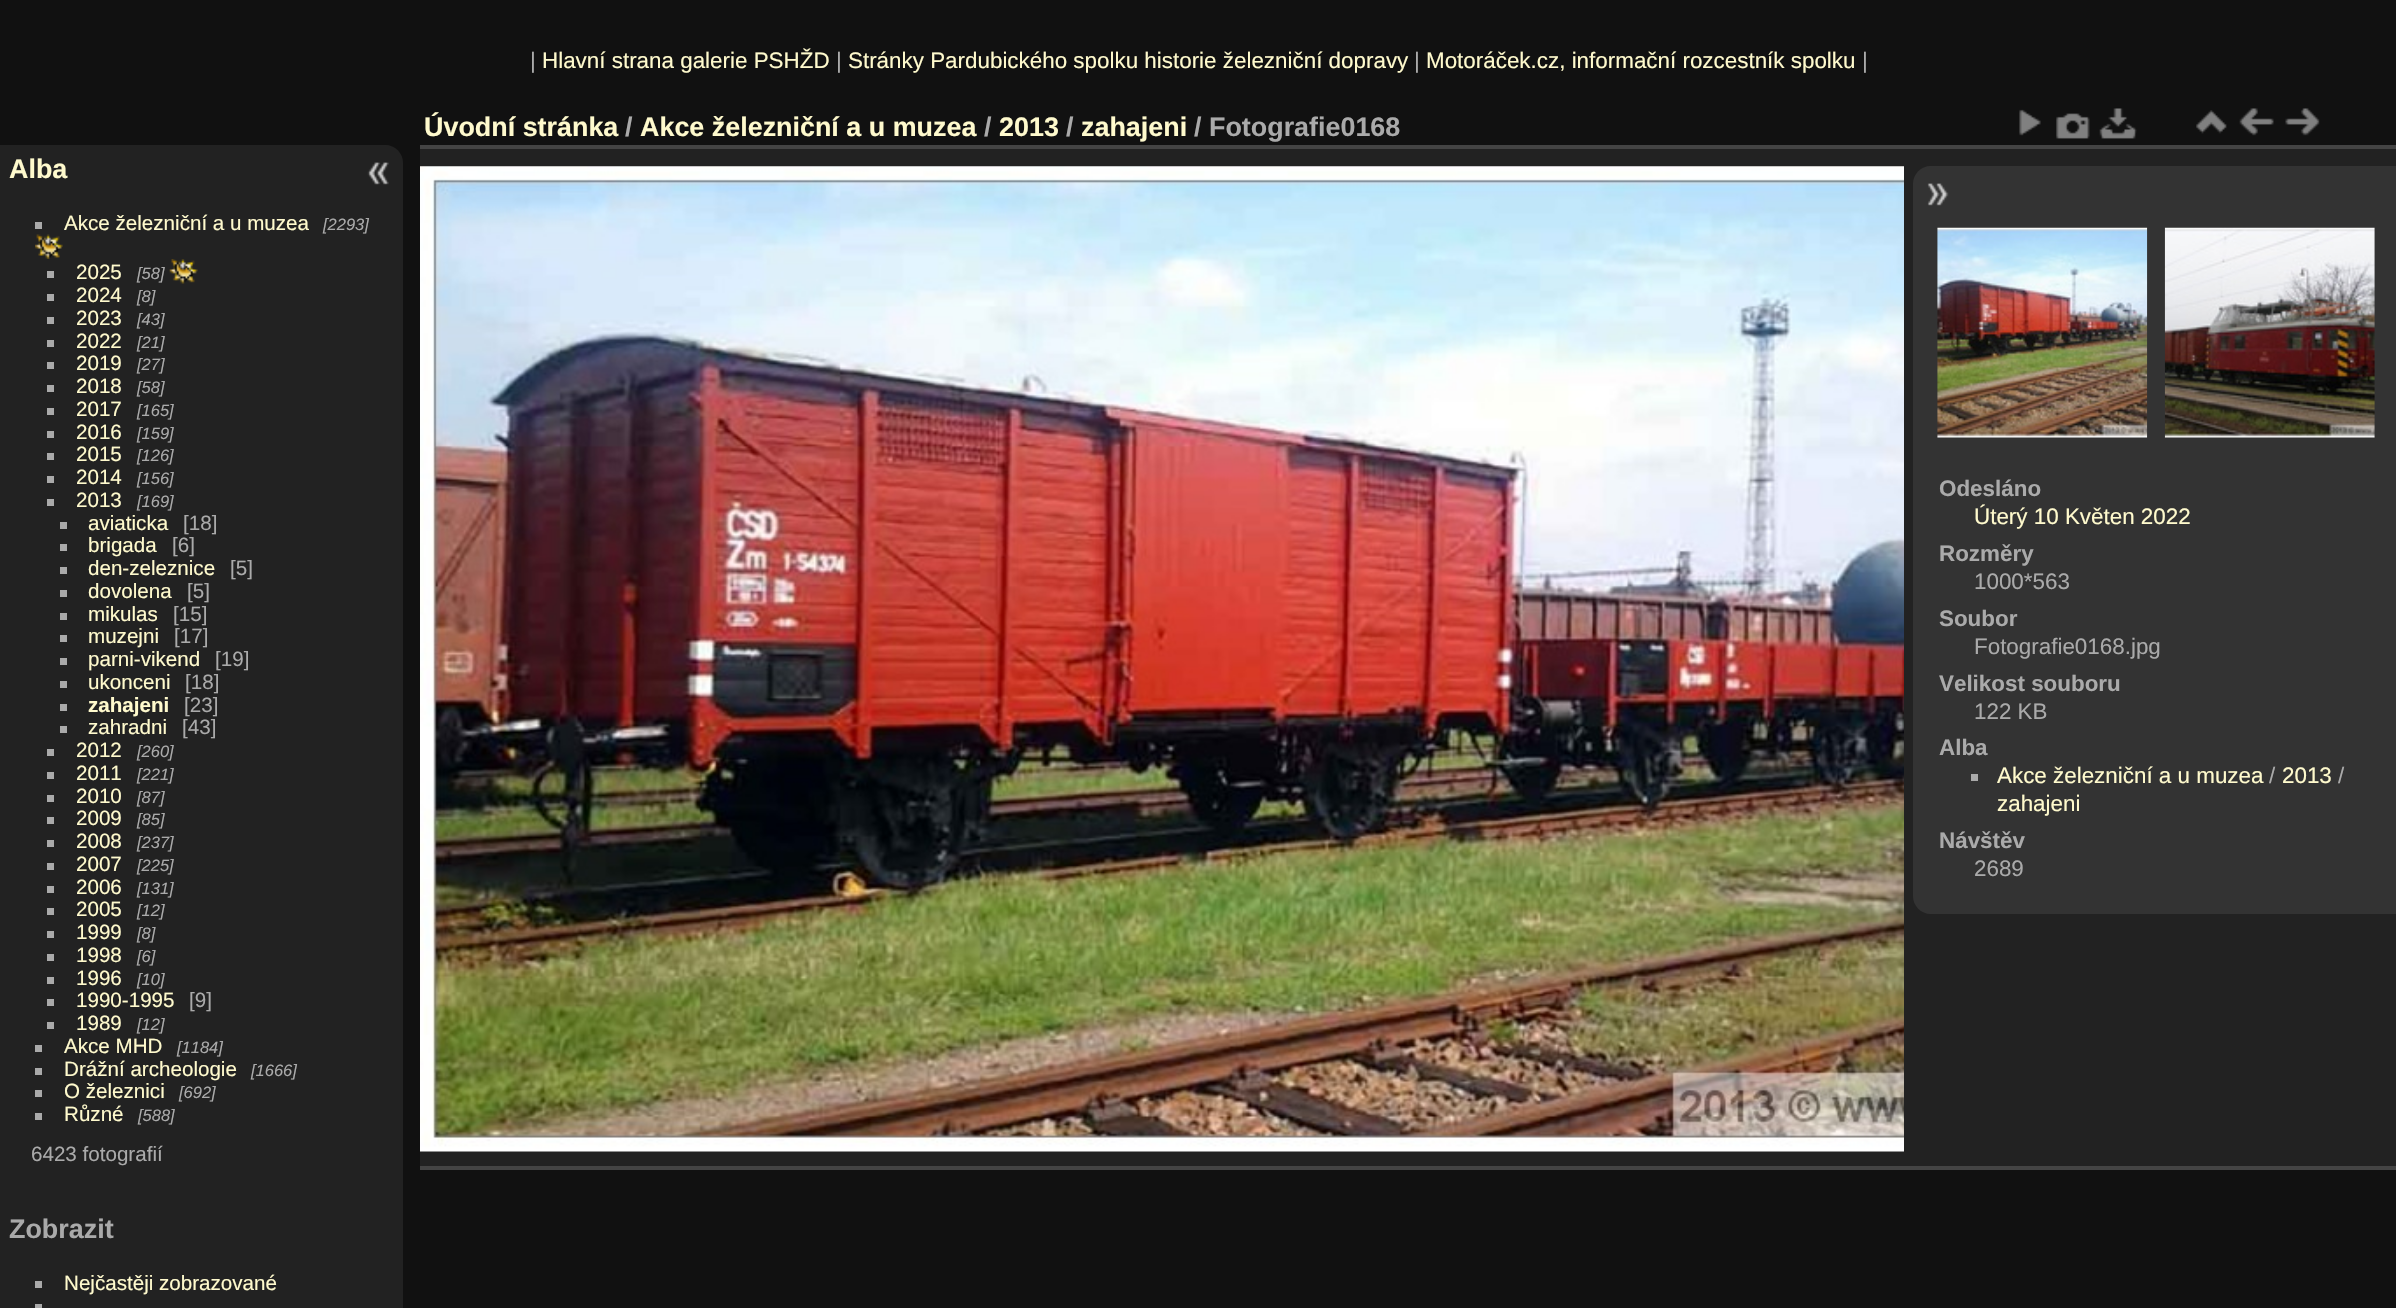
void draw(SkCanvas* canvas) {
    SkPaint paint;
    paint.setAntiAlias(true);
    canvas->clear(0xFF111111);
    SkFont font1(fontMgr->matchFamilyStyle("Liberation Sans", SkFontStyle::Normal()), 22.4f);
    font1.setSubpixel(true);
    paint.setColor(0xFFAAAAAA);
    canvas->drawString("|", 530, 68, font1, paint);
    paint.setColor(0xFFFFFACD);
    canvas->drawString("Hlavní strana galerie PSHŽD", 542, 68, font1, paint);
    paint.setColor(0xFFAAAAAA);
    canvas->drawString("|", 836, 68, font1, paint);
    paint.setColor(0xFFFFFACD);
    canvas->drawString("Stránky Pardubického spolku historie železniční dopravy", 848, 68, font1, paint);
    paint.setColor(0xFFAAAAAA);
    canvas->drawString("|", 1414, 68, font1, paint);
    paint.setColor(0xFFFFFACD);
    canvas->drawString("Motoráček.cz, informační rozcestník spolku", 1426, 68, font1, paint);
    paint.setColor(0xFFAAAAAA);
    canvas->drawString("|", 1862, 68, font1, paint);
    paint.setColor(0xFF222222);
    canvas->drawPath(SkPathBuilder().moveTo(0, 145).lineTo(385, 145).cubicTo(395, 145, 403, 153, 403, 163).lineTo(403, 1308).cubicTo(403, 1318, 395, 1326, 385, 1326).lineTo(0, 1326).close().detach(), paint);
    SkFont font2(fontMgr->matchFamilyStyle("Liberation Sans", SkFontStyle::Bold()), 26.9f);
    font2.setSubpixel(true);
    paint.setColor(0xFFFFFACD);
    canvas->drawString("Alba", 9, 178, font2, paint);
    paint.setColor(0xFFAAAAAA);
    canvas->drawRect(SkRect::MakeXYWH(35, 222, 7, 7), paint);
    SkFont font3(fontMgr->matchFamilyStyle("Liberation Sans", SkFontStyle::Normal()), 20.6f);
    font3.setSubpixel(true);
    paint.setColor(0xFFFFFACD);
    canvas->drawString("Akce železniční a u muzea", 64, 230, font3, paint);
    SkFont font4(fontMgr->matchFamilyStyle("Liberation Sans", SkFontStyle::Italic()), 16.5f);
    font4.setSubpixel(true);
    paint.setColor(0xFFAAAAAA);
    canvas->drawString("[2293]", 323, 230, font4, paint);
    canvas->drawImageRect(SkImages::DeferredFromEncodedData(SkData::MakeFromFileName("img1.png")), SkRect::MakeXYWH(35, 234, 28, 25), SkSamplingOptions());
    canvas->drawRect(SkRect::MakeXYWH(47, 271, 7, 7), paint);
    paint.setColor(0xFFFFFACD);
    canvas->drawString("2025", 76, 279, font3, paint);
    paint.setColor(0xFFAAAAAA);
    canvas->drawString("[58]", 137, 279, font4, paint);
    canvas->drawImageRect(SkImages::DeferredFromEncodedData(SkData::MakeFromFileName("img2.png")), SkRect::MakeXYWH(169, 259, 29, 25), SkSamplingOptions());
    canvas->drawRect(SkRect::MakeXYWH(47, 294, 7, 7), paint);
    paint.setColor(0xFFFFFACD);
    canvas->drawString("2024", 76, 302, font3, paint);
    paint.setColor(0xFFAAAAAA);
    canvas->drawString("[8]", 137, 302, font4, paint);
    canvas->drawRect(SkRect::MakeXYWH(47, 317, 7, 7), paint);
    paint.setColor(0xFFFFFACD);
    canvas->drawString("2023", 76, 325, font3, paint);
    paint.setColor(0xFFAAAAAA);
    canvas->drawString("[43]", 137, 325, font4, paint);
    canvas->drawRect(SkRect::MakeXYWH(47, 340, 7, 7), paint);
    paint.setColor(0xFFFFFACD);
    canvas->drawString("2022", 76, 348, font3, paint);
    paint.setColor(0xFFAAAAAA);
    canvas->drawString("[21]", 137, 348, font4, paint);
    canvas->drawRect(SkRect::MakeXYWH(47, 362, 7, 7), paint);
    paint.setColor(0xFFFFFACD);
    canvas->drawString("2019", 76, 370, font3, paint);
    paint.setColor(0xFFAAAAAA);
    canvas->drawString("[27]", 137, 370, font4, paint);
    canvas->drawRect(SkRect::MakeXYWH(47, 385, 7, 7), paint);
    paint.setColor(0xFFFFFACD);
    canvas->drawString("2018", 76, 393, font3, paint);
    paint.setColor(0xFFAAAAAA);
    canvas->drawString("[58]", 137, 393, font4, paint);
    canvas->drawRect(SkRect::MakeXYWH(47, 408, 7, 7), paint);
    paint.setColor(0xFFFFFACD);
    canvas->drawString("2017", 76, 416, font3, paint);
    paint.setColor(0xFFAAAAAA);
    canvas->drawString("[165]", 137, 416, font4, paint);
    canvas->drawRect(SkRect::MakeXYWH(47, 431, 7, 7), paint);
    paint.setColor(0xFFFFFACD);
    canvas->drawString("2016", 76, 439, font3, paint);
    paint.setColor(0xFFAAAAAA);
    canvas->drawString("[159]", 137, 439, font4, paint);
    canvas->drawRect(SkRect::MakeXYWH(47, 453, 7, 7), paint);
    paint.setColor(0xFFFFFACD);
    canvas->drawString("2015", 76, 461, font3, paint);
    paint.setColor(0xFFAAAAAA);
    canvas->drawString("[126]", 137, 461, font4, paint);
    canvas->drawRect(SkRect::MakeXYWH(47, 476, 7, 7), paint);
    paint.setColor(0xFFFFFACD);
    canvas->drawString("2014", 76, 484, font3, paint);
    paint.setColor(0xFFAAAAAA);
    canvas->drawString("[156]", 137, 484, font4, paint);
    canvas->drawRect(SkRect::MakeXYWH(47, 499, 7, 7), paint);
    paint.setColor(0xFFFFFACD);
    canvas->drawString("2013", 76, 507, font3, paint);
    paint.setColor(0xFFAAAAAA);
    canvas->drawString("[169]", 137, 507, font4, paint);
    canvas->drawRect(SkRect::MakeXYWH(60, 522, 7, 7), paint);
    paint.setColor(0xFFFFFACD);
    canvas->drawString("aviaticka", 88, 530, font3, paint);
    paint.setColor(0xFFAAAAAA);
    canvas->drawString("[18]", 183, 530, font3, paint);
    canvas->drawRect(SkRect::MakeXYWH(60, 544, 7, 7), paint);
    paint.setColor(0xFFFFFACD);
    canvas->drawString("brigada", 88, 552, font3, paint);
    paint.setColor(0xFFAAAAAA);
    canvas->drawString("[6]", 172, 552, font3, paint);
    canvas->drawRect(SkRect::MakeXYWH(60, 567, 7, 7), paint);
    paint.setColor(0xFFFFFACD);
    canvas->drawString("den-zeleznice", 88, 575, font3, paint);
    paint.setColor(0xFFAAAAAA);
    canvas->drawString("[5]", 230, 575, font3, paint);
    canvas->drawRect(SkRect::MakeXYWH(60, 590, 7, 7), paint);
    paint.setColor(0xFFFFFACD);
    canvas->drawString("dovolena", 88, 598, font3, paint);
    paint.setColor(0xFFAAAAAA);
    canvas->drawString("[5]", 187, 598, font3, paint);
    canvas->drawRect(SkRect::MakeXYWH(60, 613, 7, 7), paint);
    paint.setColor(0xFFFFFACD);
    canvas->drawString("mikulas", 88, 621, font3, paint);
    paint.setColor(0xFFAAAAAA);
    canvas->drawString("[15]", 173, 621, font3, paint);
    canvas->drawRect(SkRect::MakeXYWH(60, 635, 7, 7), paint);
    paint.setColor(0xFFFFFACD);
    canvas->drawString("muzejni", 88, 643, font3, paint);
    paint.setColor(0xFFAAAAAA);
    canvas->drawString("[17]", 174, 643, font3, paint);
    canvas->drawRect(SkRect::MakeXYWH(60, 658, 7, 7), paint);
    paint.setColor(0xFFFFFACD);
    canvas->drawString("parni-vikend", 88, 666, font3, paint);
    paint.setColor(0xFFAAAAAA);
    canvas->drawString("[19]", 215, 666, font3, paint);
    canvas->drawRect(SkRect::MakeXYWH(60, 681, 7, 7), paint);
    paint.setColor(0xFFFFFACD);
    canvas->drawString("ukonceni", 88, 689, font3, paint);
    paint.setColor(0xFFAAAAAA);
    canvas->drawString("[18]", 185, 689, font3, paint);
    canvas->drawRect(SkRect::MakeXYWH(60, 704, 7, 7), paint);
    SkFont font5(fontMgr->matchFamilyStyle("Liberation Sans", SkFontStyle::Bold()), 20.6f);
    font5.setSubpixel(true);
    paint.setColor(0xFFFFFACD);
    canvas->drawString("zahajeni", 88, 712, font5, paint);
    paint.setColor(0xFFAAAAAA);
    canvas->drawString("[23]", 184, 712, font3, paint);
    canvas->drawRect(SkRect::MakeXYWH(60, 726, 7, 7), paint);
    paint.setColor(0xFFFFFACD);
    canvas->drawString("zahradni", 88, 734, font3, paint);
    paint.setColor(0xFFAAAAAA);
    canvas->drawString("[43]", 182, 734, font3, paint);
    canvas->drawRect(SkRect::MakeXYWH(47, 749, 7, 7), paint);
    paint.setColor(0xFFFFFACD);
    canvas->drawString("2012", 76, 757, font3, paint);
    paint.setColor(0xFFAAAAAA);
    canvas->drawString("[260]", 137, 757, font4, paint);
    canvas->drawRect(SkRect::MakeXYWH(47, 772, 7, 7), paint);
    paint.setColor(0xFFFFFACD);
    canvas->drawString("2011", 76, 780, font3, paint);
    paint.setColor(0xFFAAAAAA);
    canvas->drawString("[221]", 137, 780, font4, paint);
    canvas->drawRect(SkRect::MakeXYWH(47, 795, 7, 7), paint);
    paint.setColor(0xFFFFFACD);
    canvas->drawString("2010", 76, 803, font3, paint);
    paint.setColor(0xFFAAAAAA);
    canvas->drawString("[87]", 137, 803, font4, paint);
    canvas->drawRect(SkRect::MakeXYWH(47, 817, 7, 7), paint);
    paint.setColor(0xFFFFFACD);
    canvas->drawString("2009", 76, 825, font3, paint);
    paint.setColor(0xFFAAAAAA);
    canvas->drawString("[85]", 137, 825, font4, paint);
    canvas->drawRect(SkRect::MakeXYWH(47, 840, 7, 7), paint);
    paint.setColor(0xFFFFFACD);
    canvas->drawString("2008", 76, 848, font3, paint);
    paint.setColor(0xFFAAAAAA);
    canvas->drawString("[237]", 137, 848, font4, paint);
    canvas->drawRect(SkRect::MakeXYWH(47, 863, 7, 7), paint);
    paint.setColor(0xFFFFFACD);
    canvas->drawString("2007", 76, 871, font3, paint);
    paint.setColor(0xFFAAAAAA);
    canvas->drawString("[225]", 137, 871, font4, paint);
    canvas->drawRect(SkRect::MakeXYWH(47, 886, 7, 7), paint);
    paint.setColor(0xFFFFFACD);
    canvas->drawString("2006", 76, 894, font3, paint);
    paint.setColor(0xFFAAAAAA);
    canvas->drawString("[131]", 137, 894, font4, paint);
    canvas->drawRect(SkRect::MakeXYWH(47, 908, 7, 7), paint);
    paint.setColor(0xFFFFFACD);
    canvas->drawString("2005", 76, 916, font3, paint);
    paint.setColor(0xFFAAAAAA);
    canvas->drawString("[12]", 137, 916, font4, paint);
    canvas->drawRect(SkRect::MakeXYWH(47, 931, 7, 7), paint);
    paint.setColor(0xFFFFFACD);
    canvas->drawString("1999", 76, 939, font3, paint);
    paint.setColor(0xFFAAAAAA);
    canvas->drawString("[8]", 137, 939, font4, paint);
    canvas->drawRect(SkRect::MakeXYWH(47, 954, 7, 7), paint);
    paint.setColor(0xFFFFFACD);
    canvas->drawString("1998", 76, 962, font3, paint);
    paint.setColor(0xFFAAAAAA);
    canvas->drawString("[6]", 137, 962, font4, paint);
    canvas->drawRect(SkRect::MakeXYWH(47, 977, 7, 7), paint);
    paint.setColor(0xFFFFFACD);
    canvas->drawString("1996", 76, 985, font3, paint);
    paint.setColor(0xFFAAAAAA);
    canvas->drawString("[10]", 137, 985, font4, paint);
    canvas->drawRect(SkRect::MakeXYWH(47, 999, 7, 7), paint);
    paint.setColor(0xFFFFFACD);
    canvas->drawString("1990-1995", 76, 1007, font3, paint);
    paint.setColor(0xFFAAAAAA);
    canvas->drawString("[9]", 189, 1007, font3, paint);
    canvas->drawRect(SkRect::MakeXYWH(47, 1022, 7, 7), paint);
    paint.setColor(0xFFFFFACD);
    canvas->drawString("1989", 76, 1030, font3, paint);
    paint.setColor(0xFFAAAAAA);
    canvas->drawString("[12]", 137, 1030, font4, paint);
    canvas->drawRect(SkRect::MakeXYWH(35, 1045, 7, 7), paint);
    paint.setColor(0xFFFFFACD);
    canvas->drawString("Akce MHD", 64, 1053, font3, paint);
    paint.setColor(0xFFAAAAAA);
    canvas->drawString("[1184]", 177, 1053, font4, paint);
    canvas->drawRect(SkRect::MakeXYWH(35, 1068, 7, 7), paint);
    paint.setColor(0xFFFFFACD);
    canvas->drawString("Drážní archeologie", 64, 1076, font3, paint);
    paint.setColor(0xFFAAAAAA);
    canvas->drawString("[1666]", 251, 1076, font4, paint);
    canvas->drawRect(SkRect::MakeXYWH(35, 1090, 7, 7), paint);
    paint.setColor(0xFFFFFACD);
    canvas->drawString("O železnici", 64, 1098, font3, paint);
    paint.setColor(0xFFAAAAAA);
    canvas->drawString("[692]", 179, 1098, font4, paint);
    canvas->drawRect(SkRect::MakeXYWH(35, 1113, 7, 7), paint);
    paint.setColor(0xFFFFFACD);
    canvas->drawString("Různé", 64, 1121, font3, paint);
    paint.setColor(0xFFAAAAAA);
    canvas->drawString("[588]", 138, 1121, font4, paint);
    canvas->drawString("6423 fotografií", 31, 1161, font3, paint);
    canvas->drawString("Zobrazit", 9, 1238, font2, paint);
    canvas->drawRect(SkRect::MakeXYWH(35, 1281, 7, 7), paint);
    paint.setColor(0xFFFFFACD);
    canvas->drawString("Nejčastěji zobrazované", 64, 1290, font3, paint);
    paint.setColor(0xFFAAAAAA);
    canvas->drawRect(SkRect::MakeXYWH(35, 1304, 7, 4), paint);
    canvas->drawImageRect(SkImages::DeferredFromEncodedData(SkData::MakeFromFileName("img3.png")), SkRect::MakeXYWH(367, 162, 22, 23), SkSamplingOptions());
    paint.setColor(0xFF222222);
    canvas->drawRect(SkRect::MakeXYWH(420, 149, 1976, 1017), paint);
    paint.setColor(0xFF444444);
    canvas->drawRect(SkRect::MakeXYWH(420, 1166, 1976, 4), paint);
    canvas->drawRect(SkRect::MakeXYWH(420, 145, 1976, 4), paint);
    paint.setColor(0xFFFFFACD);
    canvas->drawString("Úvodní stránka", 424, 136, font2, paint);
    paint.setColor(0xFFAAAAAA);
    canvas->drawString("/", 625, 136, font2, paint);
    paint.setColor(0xFFFFFACD);
    canvas->drawString("Akce železniční a u muzea", 640, 136, font2, paint);
    paint.setColor(0xFFAAAAAA);
    canvas->drawString("/", 984, 136, font2, paint);
    paint.setColor(0xFFFFFACD);
    canvas->drawString("2013", 999, 136, font2, paint);
    paint.setColor(0xFFAAAAAA);
    canvas->drawString("/", 1066, 136, font2, paint);
    paint.setColor(0xFFFFFACD);
    canvas->drawString("zahajeni", 1081, 136, font2, paint);
    paint.setColor(0xFFAAAAAA);
    canvas->drawString("/ Fotografie0168", 1194, 136, font2, paint);
    canvas->drawImageRect(SkImages::DeferredFromEncodedData(SkData::MakeFromFileName("img4.png")), SkRect::MakeXYWH(2019, 109, 22, 27), SkSamplingOptions());
    canvas->drawImageRect(SkImages::DeferredFromEncodedData(SkData::MakeFromFileName("img5.png")), SkRect::MakeXYWH(2056, 113, 34, 26), SkSamplingOptions());
    canvas->drawImageRect(SkImages::DeferredFromEncodedData(SkData::MakeFromFileName("img6.png")), SkRect::MakeXYWH(2099, 108, 38, 31), SkSamplingOptions());
    canvas->drawImageRect(SkImages::DeferredFromEncodedData(SkData::MakeFromFileName("img7.png")), SkRect::MakeXYWH(2196, 110, 31, 24), SkSamplingOptions());
    canvas->drawImageRect(SkImages::DeferredFromEncodedData(SkData::MakeFromFileName("img8.png")), SkRect::MakeXYWH(2239, 108, 35, 28), SkSamplingOptions());
    canvas->drawImageRect(SkImages::DeferredFromEncodedData(SkData::MakeFromFileName("img9.png")), SkRect::MakeXYWH(2285, 108, 35, 28), SkSamplingOptions());
    canvas->drawImageRect(SkImages::DeferredFromEncodedData(SkData::MakeFromFileName("img10.png")), SkRect::MakeXYWH(420, 166, 1484, 986), SkSamplingOptions());
    paint.setColor(0xFF333333);
    canvas->drawPath(SkPathBuilder().moveTo(1931, 166).lineTo(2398, 166).lineTo(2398, 914).lineTo(1931, 914).cubicTo(1921, 914, 1913, 906, 1913, 896).lineTo(1913, 184).cubicTo(1913, 174, 1921, 166, 1931, 166).close().detach(), paint);
    canvas->drawImageRect(SkImages::DeferredFromEncodedData(SkData::MakeFromFileName("img11.png")), SkRect::MakeXYWH(1927, 183, 22, 23), SkSamplingOptions());
    canvas->drawImageRect(SkImages::DeferredFromEncodedData(SkData::MakeFromFileName("img12.png")), SkRect::MakeXYWH(1937, 227, 211, 211), SkSamplingOptions());
    canvas->drawImageRect(SkImages::DeferredFromEncodedData(SkData::MakeFromFileName("img13.png")), SkRect::MakeXYWH(2164, 227, 211, 211), SkSamplingOptions());
    SkFont font6(fontMgr->matchFamilyStyle("Liberation Sans", SkFontStyle::Bold()), 22.4f);
    font6.setSubpixel(true);
    paint.setColor(0xFFAAAAAA);
    canvas->drawString("Odesláno", 1939, 496, font6, paint);
    paint.setColor(0xFFFFFACD);
    canvas->drawString("Úterý 10 Květen 2022", 1974, 524, font1, paint);
    paint.setColor(0xFFAAAAAA);
    canvas->drawString("Rozměry", 1939, 561, font6, paint);
    canvas->drawString("1000*563", 1974, 589, font1, paint);
    canvas->drawString("Soubor", 1939, 626, font6, paint);
    canvas->drawString("Fotografie0168.jpg", 1974, 654, font1, paint);
    canvas->drawString("Velikost souboru", 1939, 691, font6, paint);
    canvas->drawString("122 KB", 1974, 719, font1, paint);
    canvas->drawString("Alba", 1939, 755, font6, paint);
    canvas->drawRect(SkRect::MakeXYWH(1971, 774, 7, 7), paint);
    paint.setColor(0xFFFFFACD);
    canvas->drawString("Akce železniční a u muzea", 1997, 783, font1, paint);
    paint.setColor(0xFFAAAAAA);
    canvas->drawString("/", 2269, 783, font1, paint);
    paint.setColor(0xFFFFFACD);
    canvas->drawString("2013", 2282, 783, font1, paint);
    paint.setColor(0xFFAAAAAA);
    canvas->drawString("/", 2338, 783, font1, paint);
    paint.setColor(0xFFFFFACD);
    canvas->drawString("zahajeni", 1997, 811, font1, paint);
    paint.setColor(0xFFAAAAAA);
    canvas->drawString("Návštěv", 1939, 848, font6, paint);
    canvas->drawString("2689", 1974, 876, font1, paint);
}
